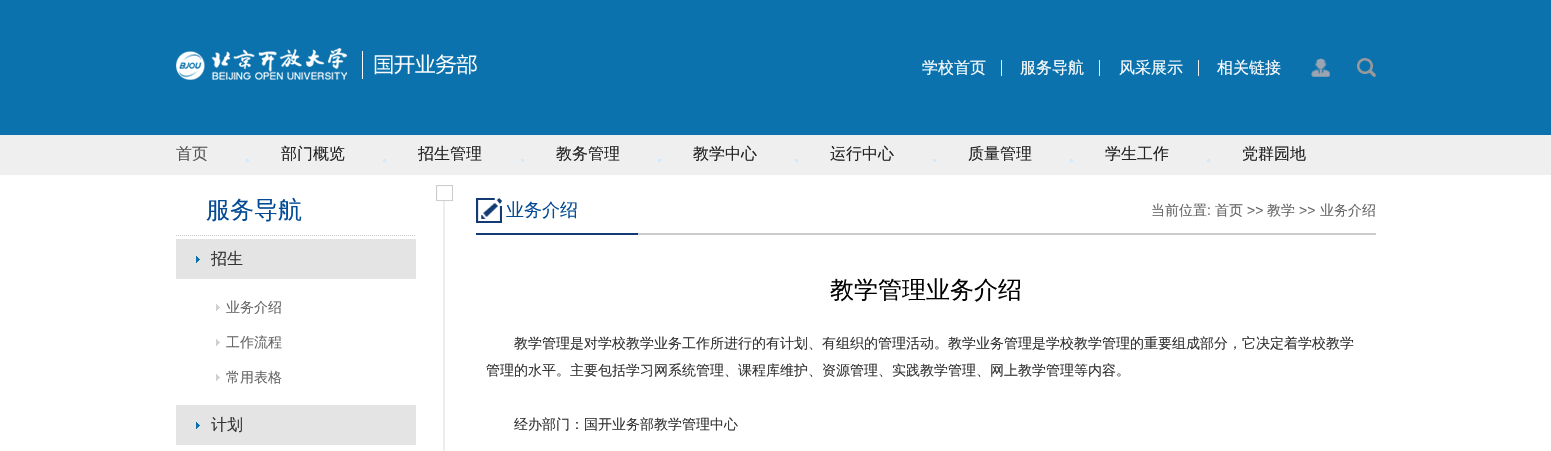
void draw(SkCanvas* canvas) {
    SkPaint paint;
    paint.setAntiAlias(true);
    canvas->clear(0xFFFFFFFF);
    paint.setColor(0xFF0B72AD);
    canvas->drawRect(SkRect::MakeXYWH(0, 0, 1551, 135), paint);
    canvas->drawImageRect(SkImages::DeferredFromEncodedData(SkData::MakeFromFileName("img1.png")), SkRect::MakeXYWH(176, 48, 301, 32), SkSamplingOptions());
    paint.setColor(0xFFEFEFEF);
    canvas->drawRect(SkRect::MakeXYWH(1001, 60, 1, 16), paint);
    SkFont font1(fontMgr->matchFamilyStyle("WenQuanYi Zen Hei", SkFontStyle(500, SkFontStyle::kNormal_Width, SkFontStyle::kUpright_Slant)), 16);
    font1.setSubpixel(true);
    paint.setColor(0xFFFFFFFF);
    canvas->drawString("学校首页", 922, 73, font1, paint);
    paint.setColor(0xFFEFEFEF);
    canvas->drawRect(SkRect::MakeXYWH(1099, 60, 1, 16), paint);
    paint.setColor(0xFFFFFFFF);
    canvas->drawString("服务导航", 1020, 73, font1, paint);
    paint.setColor(0xFFEFEFEF);
    canvas->drawRect(SkRect::MakeXYWH(1198, 60, 1, 16), paint);
    paint.setColor(0xFFFFFFFF);
    canvas->drawString("风采展示", 1119, 73, font1, paint);
    canvas->drawString("相关链接", 1217, 73, font1, paint);
    canvas->drawImageRect(SkImages::DeferredFromEncodedData(SkData::MakeFromFileName("img2.png")), SkRect::MakeXYWH(1311, 58, 19, 19), SkSamplingOptions());
    canvas->drawImageRect(SkImages::DeferredFromEncodedData(SkData::MakeFromFileName("img3.png")), SkRect::MakeXYWH(1357, 58, 19, 19), SkSamplingOptions());
    paint.setColor(0xFFEFEFEF);
    canvas->drawRect(SkRect::MakeXYWH(0, 135, 1551, 40), paint);
    paint.setColor(0xFF555555);
    canvas->drawString("首页", 176, 159, font1, paint);
    paint.setColor(0xFFD2EAFF);
    canvas->drawRect(SkRect::MakeXYWH(246, 159, 3, 3), paint);
    paint.setColor(0xFF222222);
    canvas->drawString("部门概览", 281, 159, font1, paint);
    paint.setColor(0xFFD2EAFF);
    canvas->drawRect(SkRect::MakeXYWH(383, 159, 3, 3), paint);
    paint.setColor(0xFF222222);
    canvas->drawString("招生管理", 418, 159, font1, paint);
    paint.setColor(0xFFD2EAFF);
    canvas->drawRect(SkRect::MakeXYWH(521, 159, 3, 3), paint);
    paint.setColor(0xFF222222);
    canvas->drawString("教务管理", 556, 159, font1, paint);
    paint.setColor(0xFFD2EAFF);
    canvas->drawRect(SkRect::MakeXYWH(658, 159, 3, 3), paint);
    paint.setColor(0xFF222222);
    canvas->drawString("教学中心", 693, 159, font1, paint);
    paint.setColor(0xFFD2EAFF);
    canvas->drawRect(SkRect::MakeXYWH(795, 159, 3, 3), paint);
    paint.setColor(0xFF222222);
    canvas->drawString("运行中心", 830, 159, font1, paint);
    paint.setColor(0xFFD2EAFF);
    canvas->drawRect(SkRect::MakeXYWH(933, 159, 3, 3), paint);
    paint.setColor(0xFF222222);
    canvas->drawString("质量管理", 968, 159, font1, paint);
    paint.setColor(0xFFD2EAFF);
    canvas->drawRect(SkRect::MakeXYWH(1070, 159, 3, 3), paint);
    paint.setColor(0xFF222222);
    canvas->drawString("学生工作", 1105, 159, font1, paint);
    paint.setColor(0xFFD2EAFF);
    canvas->drawRect(SkRect::MakeXYWH(1207, 159, 3, 3), paint);
    paint.setColor(0xFF222222);
    canvas->drawString("党群园地", 1242, 159, font1, paint);
    paint.setStyle(SkPaint::kStroke_Style);
    paint.setStrokeWidth(1);
    paint.setColor(0xFFCBCBCB);
    paint.setPathEffect(SkDashPathEffect::Make({{1, 1}}, 0));
    canvas->drawPath(SkPathBuilder().moveTo(176, 235.5f).lineTo(416, 235.5f).detach(), paint);
    paint.setPathEffect(nullptr);
    SkFont font2(fontMgr->matchFamilyStyle("WenQuanYi Zen Hei", SkFontStyle(500, SkFontStyle::kNormal_Width, SkFontStyle::kUpright_Slant)), 24);
    font2.setSubpixel(true);
    paint.setStyle(SkPaint::kFill_Style);
    paint.setColor(0xFF044B96);
    canvas->drawString("服务导航", 206, 218, font2, paint);
    paint.setColor(0xFFE4E4E4);
    canvas->drawRect(SkRect::MakeXYWH(176, 239, 240, 40), paint);
    canvas->drawImageRect(SkImages::DeferredFromEncodedData(SkData::MakeFromFileName("img4.png")), SkRect::MakeXYWH(196, 256, 4, 7), SkSamplingOptions());
    paint.setColor(0xFF333333);
    canvas->drawString("招生", 211, 264, font1, paint);
    canvas->drawImageRect(SkImages::DeferredFromEncodedData(SkData::MakeFromFileName("img5.png")), SkRect::MakeXYWH(216, 304, 4, 7), SkSamplingOptions());
    SkFont font3(fontMgr->matchFamilyStyle("WenQuanYi Zen Hei", SkFontStyle(500, SkFontStyle::kNormal_Width, SkFontStyle::kUpright_Slant)), 14);
    font3.setSubpixel(true);
    paint.setColor(0xFF666666);
    canvas->drawString("业务介绍", 226, 312, font3, paint);
    canvas->drawImageRect(SkImages::DeferredFromEncodedData(SkData::MakeFromFileName("img5.png")), SkRect::MakeXYWH(216, 339, 4, 7), SkSamplingOptions());
    canvas->drawString("工作流程", 226, 347, font3, paint);
    canvas->drawImageRect(SkImages::DeferredFromEncodedData(SkData::MakeFromFileName("img5.png")), SkRect::MakeXYWH(216, 374, 4, 7), SkSamplingOptions());
    canvas->drawString("常用表格", 226, 382, font3, paint);
    paint.setColor(0xFFE4E4E4);
    canvas->drawRect(SkRect::MakeXYWH(176, 405, 240, 40), paint);
    canvas->drawImageRect(SkImages::DeferredFromEncodedData(SkData::MakeFromFileName("img4.png")), SkRect::MakeXYWH(196, 422, 4, 7), SkSamplingOptions());
    paint.setColor(0xFF333333);
    canvas->drawString("计划", 211, 430, font1, paint);
    canvas->drawImageRect(SkImages::DeferredFromEncodedData(SkData::MakeFromFileName("img6.png")), SkRect::MakeXYWH(436, 185, 17, 266), SkSamplingOptions());
    canvas->drawImageRect(SkImages::DeferredFromEncodedData(SkData::MakeFromFileName("img7.png")), SkRect::MakeXYWH(476, 233, 900, 2), SkSamplingOptions());
    canvas->drawImageRect(SkImages::DeferredFromEncodedData(SkData::MakeFromFileName("img8.png")), SkRect::MakeXYWH(476, 198, 26, 25), SkSamplingOptions());
    SkFont font4(fontMgr->matchFamilyStyle("WenQuanYi Zen Hei", SkFontStyle(500, SkFontStyle::kNormal_Width, SkFontStyle::kUpright_Slant)), 18);
    font4.setSubpixel(true);
    paint.setColor(0xFF044B96);
    canvas->drawString("业务介绍", 506, 216, font4, paint);
    paint.setColor(0xFF666666);
    canvas->drawString("当前位置", 1151, 215, font3, paint);
    SkFont font5(fontMgr->matchFamilyStyle("Liberation Sans", SkFontStyle::Normal()), 14);
    font5.setSubpixel(true);
    canvas->drawString(":", 1207, 215, font5, paint);
    canvas->drawString("首页", 1215, 215, font3, paint);
    canvas->drawString(">>", 1247, 215, font5, paint);
    canvas->drawString("教学", 1267, 215, font3, paint);
    canvas->drawString(">>", 1299, 215, font5, paint);
    canvas->drawString("业务介绍", 1320, 215, font3, paint);
    paint.setColor(0xFF000000);
    canvas->drawString("教学管理业务介绍", 830, 298, font2, paint);
    paint.setColor(0xFF333333);
    canvas->drawString("教学管理是对学校教学业务工作所进行的有计划、有组织的管理活动。教学业务管理是学校教学管理的重要组成部分，它决定着学校教学", 514, 348, font3, paint);
    canvas->drawString("管理的水平。主要包括学习网系统管理、课程库维护、资源管理、实践教学管理、网上教学管理等内容。", 486, 375, font3, paint);
    canvas->drawString("经办部门：国开业务部教学管理中心", 514, 429, font3, paint);
}
